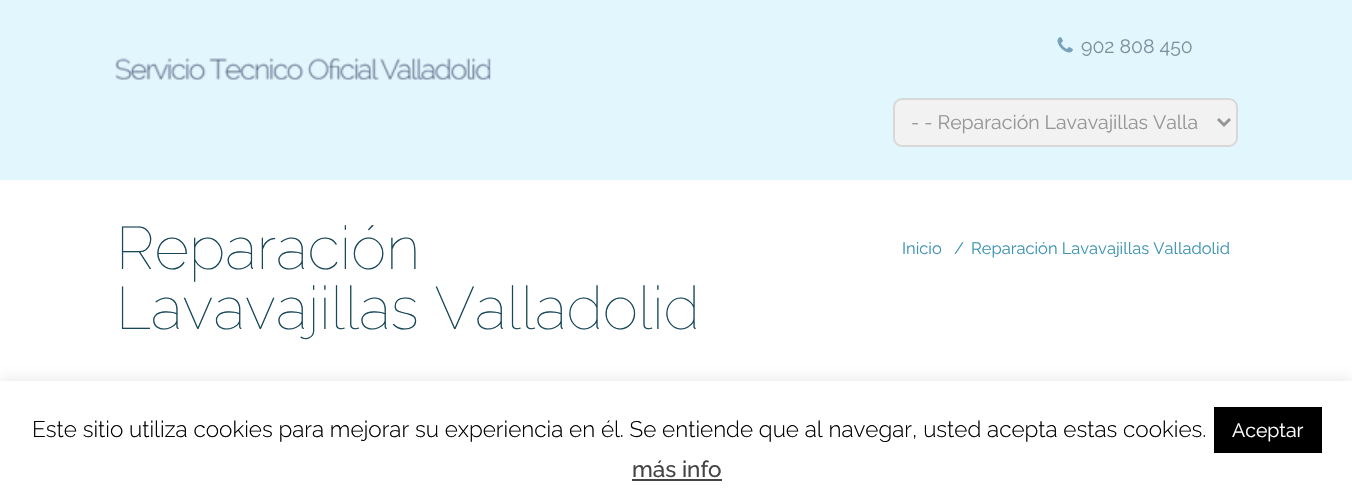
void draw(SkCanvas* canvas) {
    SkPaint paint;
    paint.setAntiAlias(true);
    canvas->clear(0xFFFFFFFF);
    paint.setColor(0xFFE2F6FD);
    canvas->drawRect(SkRect::MakeXYWH(0, 0, 1352, 180), paint);
    canvas->drawImageRect(SkImages::DeferredFromEncodedData(SkData::MakeFromFileName("img1.png")), SkRect::MakeXYWH(1057, 37, 16, 16), SkSamplingOptions());
    SkFont font1(fontMgr->matchFamilyStyle("Raleway", SkFontStyle::Normal()), 19.5f);
    font1.setSubpixel(true);
    paint.setColor(0xFF7C939F);
    canvas->drawString("902 808 450", 1081, 53, font1, paint);
    canvas->drawImageRect(SkImages::DeferredFromEncodedData(SkData::MakeFromFileName("img2.png")), SkRect::MakeXYWH(115, 58, 376, 22), SkSamplingOptions());
    paint.setColor(0xFFF2F2F2);
    canvas->drawRoundRect(SkRect::MakeXYWH(894, 99, 343, 47), 8, 8, paint);
    paint.setStyle(SkPaint::kStroke_Style);
    paint.setStrokeWidth(2);
    paint.setColor(0xFFD8D8D8);
    canvas->drawRoundRect(SkRect::MakeXYWH(894, 99, 343, 47), 8, 8, paint);
    paint.setStrokeWidth(3);
    paint.setColor(0xFF969696);
    canvas->drawPath(SkPathBuilder().moveTo(1218, 119).lineTo(1224, 125).lineTo(1230, 119).detach(), paint);
    paint.setStyle(SkPaint::kFill_Style);
    canvas->drawString("- - Reparación Lavavajillas Valla", 911, 129, font1, paint);
    SkFont font2(fontMgr->matchFamilyStyle("Raleway", SkFontStyle(100, SkFontStyle::kNormal_Width, SkFontStyle::kUpright_Slant)), 60);
    font2.setSubpixel(true);
    paint.setColor(0xFF174759);
    canvas->drawString("Reparación", 116, 269, font2, paint);
    canvas->drawString("Lavavajillas Valladolid", 116, 329, font2, paint);
    SkFont font3(fontMgr->matchFamilyStyle("Raleway", SkFontStyle::Normal()), 16.5f);
    font3.setSubpixel(true);
    paint.setColor(0xFF3E94B5);
    canvas->drawString("Inicio", 902, 254, font3, paint);
    canvas->drawString("/", 954, 254, font3, paint);
    canvas->drawString("Reparación Lavavajillas Valladolid", 971, 254, font3, paint);
    paint.setColor(0x4DACABAB);
    paint.setMaskFilter(SkMaskFilter::MakeBlur(kNormal_SkBlurStyle, 7.5f));
    canvas->drawRect(SkRect::MakeXYWH(0, 380, 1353, 123), paint);
    paint.setMaskFilter(nullptr);
    paint.setColor(0xFFFFFFFF);
    canvas->drawRect(SkRect::MakeXYWH(0, 381, 1352, 123), paint);
    SkFont font4(fontMgr->matchFamilyStyle("Raleway", SkFontStyle(300, SkFontStyle::kNormal_Width, SkFontStyle::kUpright_Slant)), 22.5f);
    font4.setSubpixel(true);
    paint.setColor(0xFF000000);
    canvas->drawString("Este sitio utiliza cookies para mejorar su experiencia en él. Se entiende que al navegar, usted acepta estas cookies.", 32, 437, font4, paint);
    canvas->drawRect(SkRect::MakeXYWH(1214, 407, 108, 46), paint);
    paint.setColor(0xFFFFFFFF);
    canvas->drawString("Aceptar", 1232, 437, font1, paint);
    SkFont font5(fontMgr->matchFamilyStyle("Raleway", SkFontStyle(500, SkFontStyle::kNormal_Width, SkFontStyle::kUpright_Slant)), 22.5f);
    font5.setSubpixel(true);
    paint.setColor(0xFF444444);
    canvas->drawString("más info", 632, 477, font5, paint);
    canvas->drawRect(SkRect::MakeXYWH(632, 479, 90, 2), paint);
}
